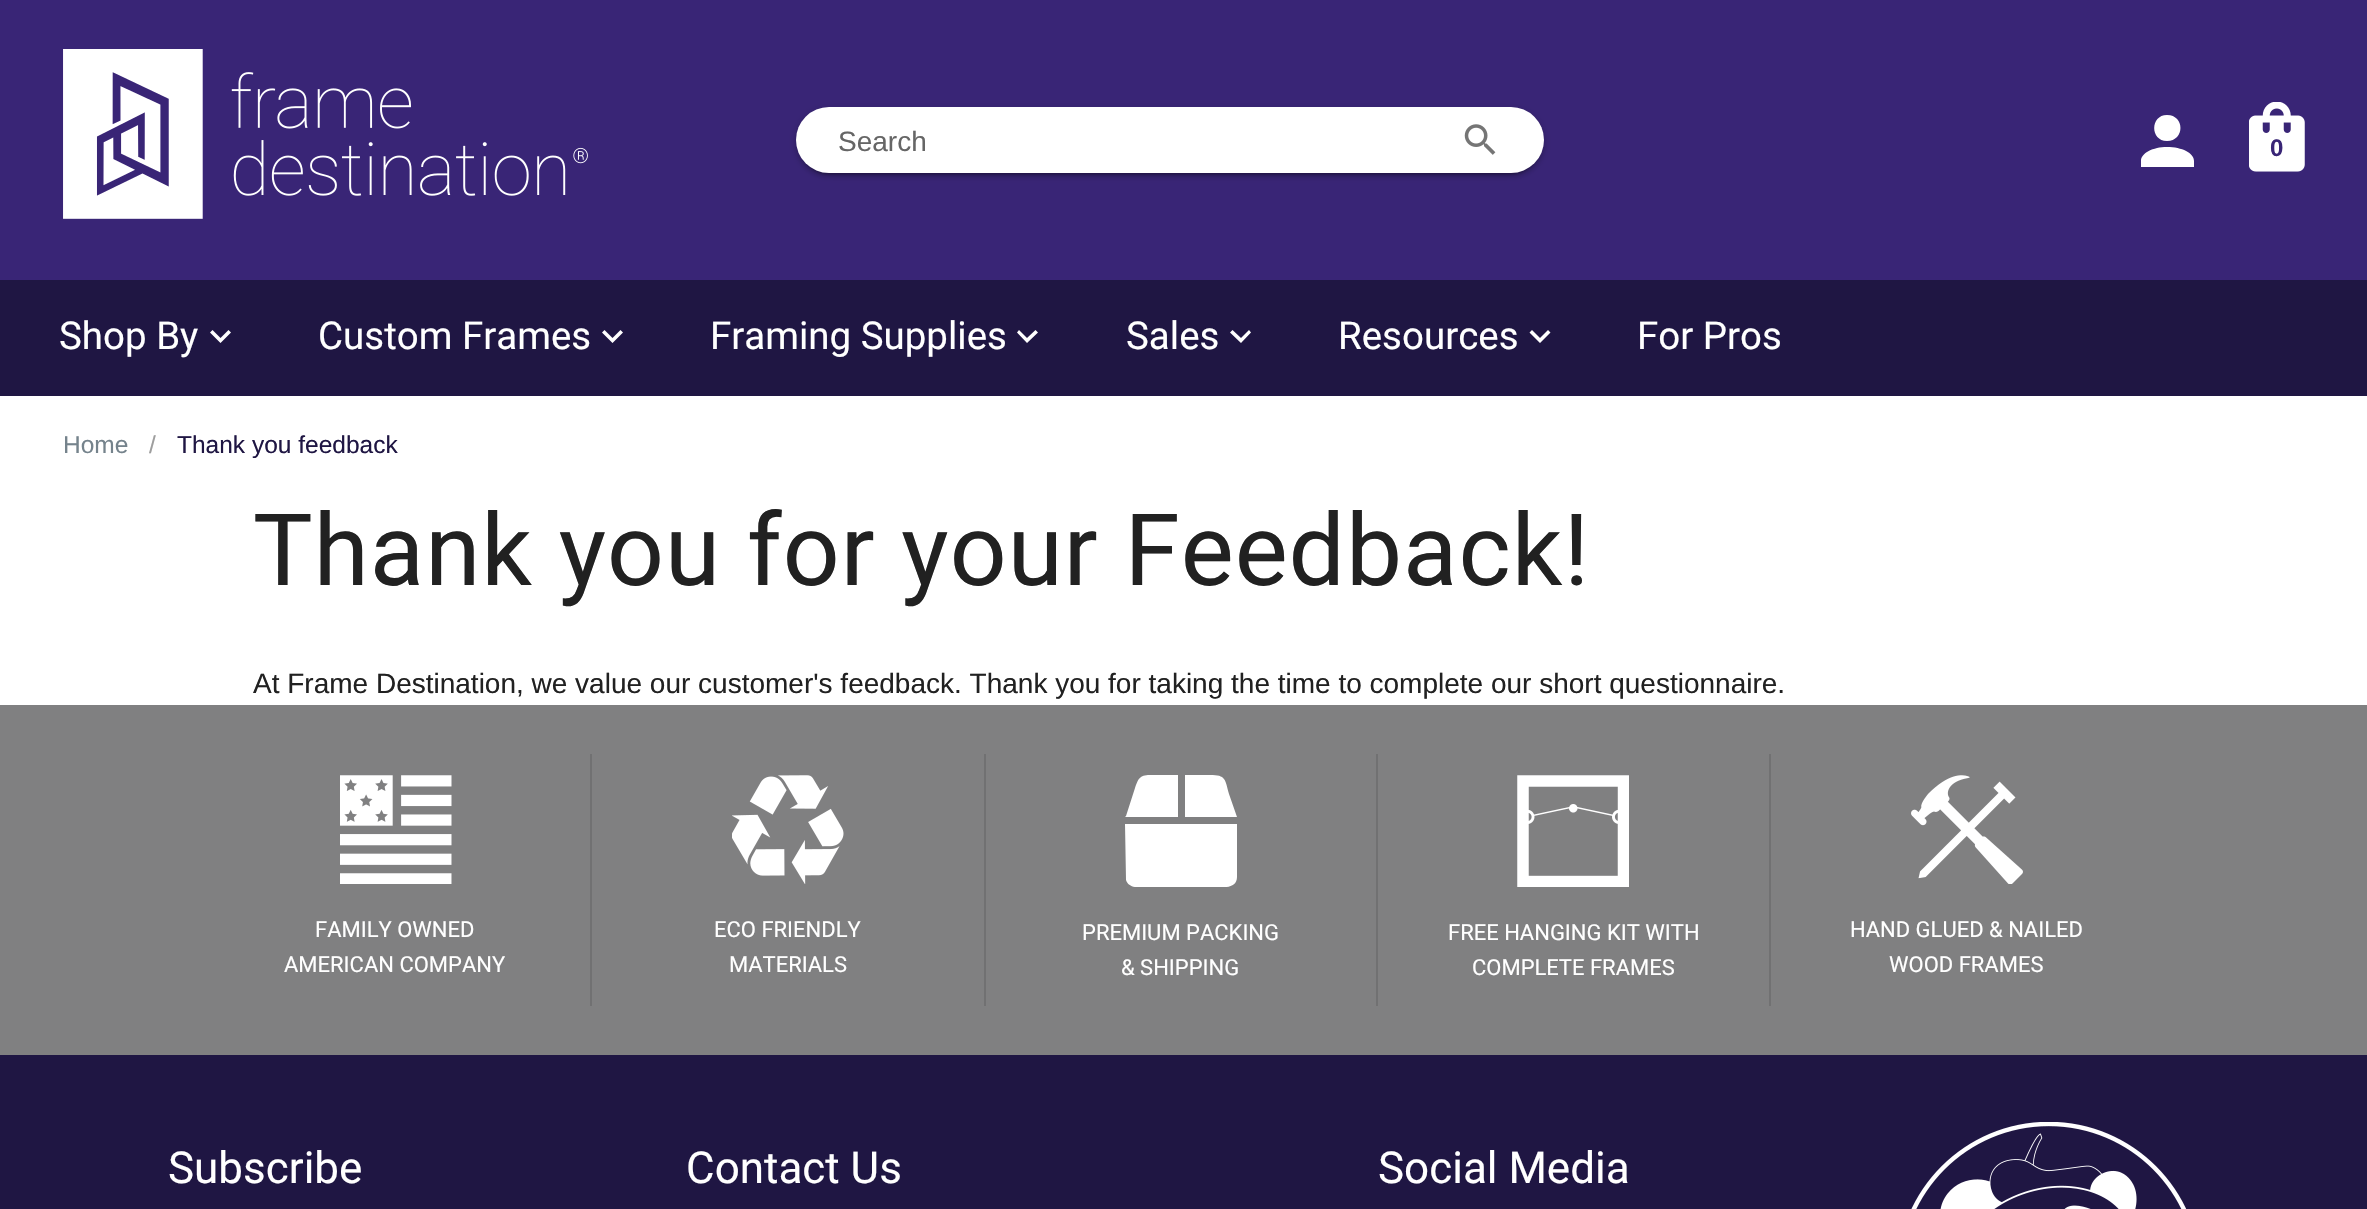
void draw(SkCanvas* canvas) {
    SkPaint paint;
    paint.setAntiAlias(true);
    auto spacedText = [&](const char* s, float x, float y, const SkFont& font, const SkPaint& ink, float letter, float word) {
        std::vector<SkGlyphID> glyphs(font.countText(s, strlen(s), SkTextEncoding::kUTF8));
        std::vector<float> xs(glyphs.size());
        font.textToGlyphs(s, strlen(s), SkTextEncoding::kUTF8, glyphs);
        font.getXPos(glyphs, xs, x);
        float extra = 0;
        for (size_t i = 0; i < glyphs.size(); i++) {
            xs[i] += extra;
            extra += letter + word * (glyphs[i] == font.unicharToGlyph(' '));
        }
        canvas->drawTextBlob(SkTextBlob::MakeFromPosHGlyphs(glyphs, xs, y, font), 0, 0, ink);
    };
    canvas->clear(0xFFFFFFFF);
    paint.setColor(0xFF392576);
    canvas->drawRect(SkRect::MakeXYWH(0, 0, 2367, 280), paint);
    canvas->drawImageRect(SkImages::DeferredFromEncodedData(SkData::MakeFromFileName("img1.png")), SkRect::MakeXYWH(63, 49, 525, 170), SkSamplingOptions());
    paint.setColor(0x1F000000);
    paint.setMaskFilter(SkMaskFilter::MakeBlur(kNormal_SkBlurStyle, 4.5f));
    canvas->drawRoundRect(SkRect::MakeXYWH(796, 109, 748, 66), 33, 33, paint);
    paint.setMaskFilter(nullptr);
    paint.setColor(0x24000000);
    paint.setMaskFilter(SkMaskFilter::MakeBlur(kNormal_SkBlurStyle, 2));
    canvas->drawRoundRect(SkRect::MakeXYWH(796, 110, 748, 67), 33.5f, 33.5f, paint);
    paint.setMaskFilter(nullptr);
    paint.setColor(0x33000000);
    paint.setMaskFilter(SkMaskFilter::MakeBlur(kNormal_SkBlurStyle, 1));
    canvas->drawRoundRect(SkRect::MakeXYWH(800, 116, 740, 59), 29.5f, 29.5f, paint);
    paint.setMaskFilter(nullptr);
    paint.setColor(0xFFFFFFFF);
    canvas->drawRoundRect(SkRect::MakeXYWH(796, 107, 748, 66), 33, 33, paint);
    SkFont font1(fontMgr->matchFamilyStyle("Liberation Sans", SkFontStyle::Normal()), 28);
    font1.setSubpixel(true);
    paint.setColor(0xFF666666);
    canvas->drawString("Search", 838, 151, font1, paint);
    canvas->drawImageRect(SkImages::DeferredFromEncodedData(SkData::MakeFromFileName("img2.png")), SkRect::MakeXYWH(1464, 124, 32, 31), SkSamplingOptions());
    paint.setColor(0xFFFFFFFF);
    canvas->drawPath(SkPathBuilder().moveTo(2167, 115).cubicTo(2185, 115, 2185, 141, 2167, 141).cubicTo(2150, 141, 2150, 115, 2167, 115).moveTo(2167, 147).cubicTo(2182, 147, 2194, 153, 2194, 161).lineTo(2194, 167).lineTo(2141, 167).lineTo(2141, 161).cubicTo(2141, 153, 2153, 147, 2167, 147).close().detach(), paint);
    canvas->drawImageRect(SkImages::DeferredFromEncodedData(SkData::MakeFromFileName("img3.png")), SkRect::MakeXYWH(2249, 102, 56, 70), SkSamplingOptions());
    SkFont font2(fontMgr->matchFamilyStyle("Liberation Sans", SkFontStyle::Bold()), 24);
    font2.setSubpixel(true);
    paint.setColor(0xFF392576);
    canvas->drawString("0", 2270, 156, font2, paint);
    paint.setColor(0xFF1F1643);
    canvas->drawRect(SkRect::MakeXYWH(0, 280, 2367, 116), paint);
    SkFont font3(fontMgr->matchFamilyStyle("Roboto", SkFontStyle::Normal()), 38.5f);
    font3.setSubpixel(true);
    paint.setColor(0xFFFFFFFF);
    canvas->drawString("Shop By", 59, 349, font3, paint);
    canvas->drawPath(SkPathBuilder().moveTo(212.5f, 330).lineTo(220.5f, 338).lineTo(228.5f, 330).lineTo(231, 332.5f).lineTo(220.5f, 343).lineTo(210, 332.5f).close().detach(), paint);
    canvas->drawString("Custom Frames", 318, 349, font3, paint);
    canvas->drawPath(SkPathBuilder().moveTo(604.5f, 330).lineTo(612.5f, 338).lineTo(620.5f, 330).lineTo(623, 332.5f).lineTo(612.5f, 343).lineTo(602, 332.5f).close().detach(), paint);
    canvas->drawString("Framing Supplies", 710, 349, font3, paint);
    canvas->drawPath(SkPathBuilder().moveTo(1019, 330).lineTo(1027, 338).lineTo(1035.5f, 330).lineTo(1038, 332.5f).lineTo(1027, 343).lineTo(1017, 332.5f).close().detach(), paint);
    canvas->drawString("Sales", 1126, 349, font3, paint);
    canvas->drawPath(SkPathBuilder().moveTo(1232.5f, 330).lineTo(1241, 338).lineTo(1249, 330).lineTo(1251, 332.5f).lineTo(1241, 343).lineTo(1230, 332.5f).close().detach(), paint);
    canvas->drawString("Resources", 1338, 349, font3, paint);
    canvas->drawPath(SkPathBuilder().moveTo(1532, 330).lineTo(1540, 338).lineTo(1548, 330).lineTo(1550.5f, 332.5f).lineTo(1540, 343).lineTo(1529.5f, 332.5f).close().detach(), paint);
    canvas->drawString("For Pros", 1637, 349, font3, paint);
    SkFont font4(fontMgr->matchFamilyStyle("Liberation Sans", SkFontStyle::Normal()), 24.5f);
    font4.setSubpixel(true);
    paint.setColor(0xFF75838C);
    canvas->drawString("Home", 63, 453, font4, paint);
    paint.setColor(0xFF9E9E9E);
    canvas->drawString("/", 149, 453, font4, paint);
    paint.setColor(0xFF1F1643);
    canvas->drawString("Thank you feedback", 177, 453, font4, paint);
    SkFont font5(fontMgr->matchFamilyStyle("Roboto", SkFontStyle::Normal()), 100);
    font5.setSubpixel(true);
    paint.setColor(0xFF212121);
    spacedText("Thank you for your Feedback!", 253, 585, font5, paint, 1, 0);
    canvas->drawString("At Frame Destination, we value our customer's feedback. Thank you for taking the time to complete our short questionnaire.", 253, 693, font1, paint);
    paint.setColor(0xFF808081);
    canvas->drawRect(SkRect::MakeXYWH(0, 705, 2367, 350), paint);
    canvas->drawImageRect(SkImages::DeferredFromEncodedData(SkData::MakeFromFileName("img4.png")), SkRect::MakeXYWH(340, 775, 112, 109), SkSamplingOptions());
    SkFont font6(fontMgr->matchFamilyStyle("Roboto", SkFontStyle::Normal()), 22);
    font6.setSubpixel(true);
    paint.setColor(0xFFFFFFFF);
    canvas->drawString("FAMILY OWNED", 315, 937, font6, paint);
    canvas->drawString("AMERICAN COMPANY", 284, 972, font6, paint);
    paint.setColor(0xFF717172);
    canvas->drawRect(SkRect::MakeXYWH(590, 754, 2, 252), paint);
    canvas->drawImageRect(SkImages::DeferredFromEncodedData(SkData::MakeFromFileName("img5.png")), SkRect::MakeXYWH(732, 775, 112, 109), SkSamplingOptions());
    paint.setColor(0xFFFFFFFF);
    canvas->drawString("ECO FRIENDLY", 714, 937, font6, paint);
    canvas->drawString("MATERIALS", 729, 972, font6, paint);
    paint.setColor(0xFF717172);
    canvas->drawRect(SkRect::MakeXYWH(984, 754, 2, 252), paint);
    canvas->save();
    canvas->clipRect(SkRect::MakeXYWH(1125, 775, 112, 112));
    paint.setColor(0xFFFFFFFF);
    canvas->drawPath(SkPathBuilder().moveTo(1185, 775).lineTo(1210, 775).cubicTo(1226, 775, 1225, 779, 1229, 794).lineTo(1237, 817).lineTo(1185, 817).close().moveTo(1126, 816).lineTo(1135, 788).cubicTo(1139, 777, 1140, 775, 1152, 775).lineTo(1178, 775).lineTo(1178, 817).lineTo(1125, 817).close().moveTo(1237, 877).cubicTo(1237, 890, 1220, 887, 1212, 887).lineTo(1151, 887).cubicTo(1143, 887, 1129, 890, 1126, 880).lineTo(1125, 824).lineTo(1237, 824).close().detach(), paint);
    canvas->restore();
    canvas->drawString("PREMIUM PACKING", 1082, 940, font6, paint);
    canvas->drawString("& SHIPPING", 1121, 975, font6, paint);
    paint.setColor(0xFF717172);
    canvas->drawRect(SkRect::MakeXYWH(1376, 754, 2, 252), paint);
    canvas->drawImageRect(SkImages::DeferredFromEncodedData(SkData::MakeFromFileName("img6.png")), SkRect::MakeXYWH(1517, 775, 112, 112), SkSamplingOptions());
    paint.setColor(0xFFFFFFFF);
    canvas->drawString("FREE HANGING KIT WITH", 1448, 940, font6, paint);
    canvas->drawString("COMPLETE FRAMES", 1472, 975, font6, paint);
    paint.setColor(0xFF717172);
    canvas->drawRect(SkRect::MakeXYWH(1769, 754, 2, 252), paint);
    canvas->drawImageRect(SkImages::DeferredFromEncodedData(SkData::MakeFromFileName("img7.png")), SkRect::MakeXYWH(1911, 775, 112, 109), SkSamplingOptions());
    paint.setColor(0xFFFFFFFF);
    canvas->drawString("HAND GLUED & NAILED", 1850, 937, font6, paint);
    canvas->drawString("WOOD FRAMES", 1889, 972, font6, paint);
    paint.setColor(0xFF1F1643);
    canvas->drawRect(SkRect::MakeXYWH(0, 1055, 2367, 154), paint);
    SkFont font7(fontMgr->matchFamilyStyle("Roboto", SkFontStyle::Normal()), 44);
    font7.setSubpixel(true);
    paint.setColor(0xFFFFFFFF);
    canvas->drawString("Subscribe", 168, 1183, font7, paint);
    canvas->drawString("Contact Us", 686, 1183, font7, paint);
    canvas->drawString("Social Media", 1378, 1183, font7, paint);
    canvas->drawImageRect(SkImages::DeferredFromEncodedData(SkData::MakeFromFileName("img8.png")), SkRect::MakeXYWH(1911, 1122, 276, 87), SkSamplingOptions());
}
